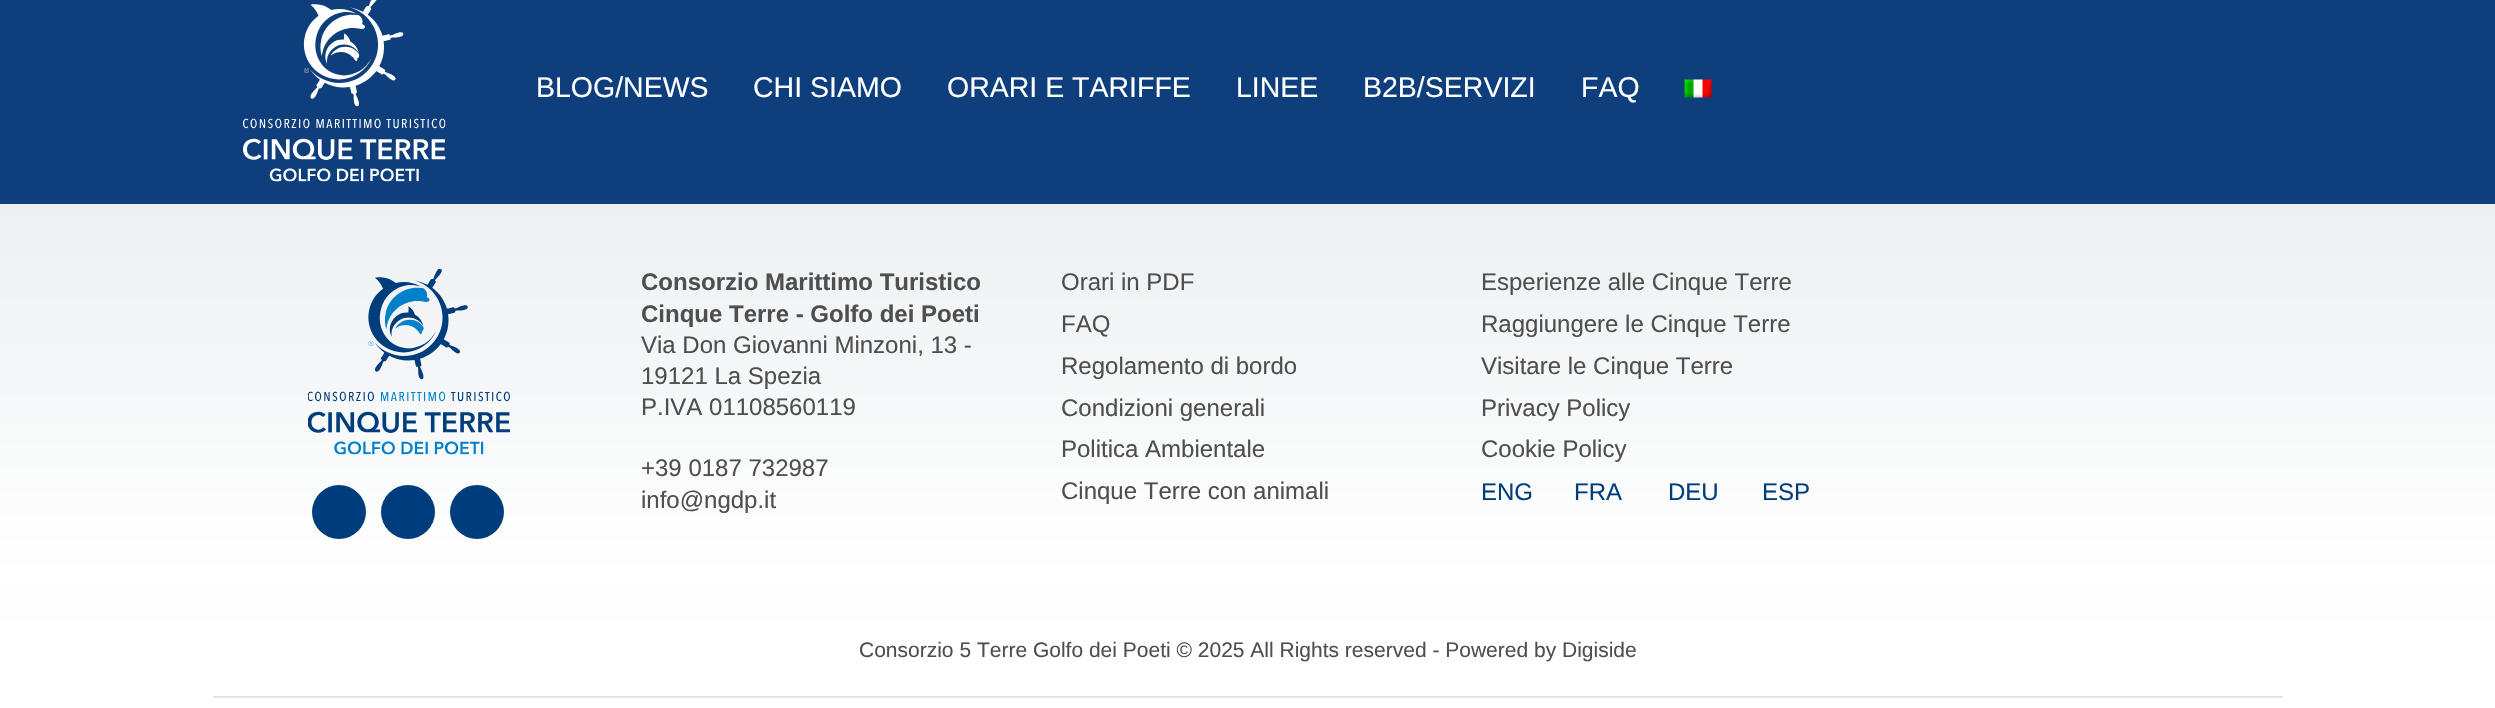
void draw(SkCanvas* canvas) {
    SkPaint paint;
    paint.setAntiAlias(true);
    canvas->clear(0xFFFFFFFF);
    paint.setColor(0xFF0E3E7B);
    canvas->drawRect(SkRect::MakeXYWH(0, 0, 2495, 204), paint);
    canvas->drawImageRect(SkImages::DeferredFromEncodedData(SkData::MakeFromFileName("img1.png")), SkRect::MakeXYWH(243, 0, 203, 182), SkSamplingOptions());
    SkFont font1(fontMgr->matchFamilyStyle("Liberation Sans", SkFontStyle::Normal()), 28.5f);
    font1.setSubpixel(true);
    paint.setColor(0xFFFFFFFF);
    canvas->drawString("BLOG/NEWS", 536, 97, font1, paint);
    canvas->drawString("CHI SIAMO", 753, 97, font1, paint);
    canvas->drawString("ORARI E TARIFFE", 947, 97, font1, paint);
    canvas->drawString("LINEE", 1236, 97, font1, paint);
    canvas->drawString("B2B/SERVIZI", 1363, 97, font1, paint);
    canvas->drawString("FAQ", 1581, 97, font1, paint);
    canvas->drawImageRect(SkImages::DeferredFromEncodedData(SkData::MakeFromFileName("img2.png")), SkRect::MakeXYWH(1684, 79, 28, 19), SkSamplingOptions());
    {
        const SkColor colors[] = {0xFFECEFF1, 0xFFFFFFFF, 0xFFFCFCFC};
        const float stops[] = {0, 0.9f, 1};
        const SkPoint ends[] = {{1248, 186}, {1248, 621}};
        paint.setShader(SkGradientShader::MakeLinear(ends, colors, stops, 3, SkTileMode::kClamp));
        paint.setAlpha(255);
    }
    canvas->drawRect(SkRect::MakeXYWH(0, 204, 2495, 417), paint);
    canvas->drawImageRect(SkImages::DeferredFromEncodedData(SkData::MakeFromFileName("img3.png")), SkRect::MakeXYWH(308, 269, 202, 186), SkSamplingOptions());
    paint.setShader(nullptr);
    paint.setColor(0xFF003D7C);
    canvas->drawCircle(339, 512, 27, paint);
    canvas->drawCircle(408, 512, 27, paint);
    canvas->drawCircle(477, 512, 27, paint);
    SkFont font2(fontMgr->matchFamilyStyle("Liberation Sans", SkFontStyle::Bold()), 24);
    font2.setSubpixel(true);
    paint.setColor(0xFF4F4F4F);
    canvas->drawString("Consorzio Marittimo Turistico", 641, 290, font2, paint);
    canvas->drawString("Cinque Terre - Golfo dei Poeti", 641, 322, font2, paint);
    SkFont font3(fontMgr->matchFamilyStyle("Liberation Sans", SkFontStyle::Normal()), 24);
    font3.setSubpixel(true);
    canvas->drawString("Via Don Giovanni Minzoni, 13 -", 641, 353, font3, paint);
    canvas->drawString("19121 La Spezia", 641, 384, font3, paint);
    canvas->drawString("P.IVA 01108560119", 641, 415, font3, paint);
    canvas->drawString("+39 0187 732987", 641, 476, font3, paint);
    canvas->drawString("info@ngdp.it", 641, 508, font3, paint);
    canvas->drawString("Orari in PDF", 1061, 290, font3, paint);
    canvas->drawString("FAQ", 1061, 332, font3, paint);
    canvas->drawString("Regolamento di bordo", 1061, 374, font3, paint);
    canvas->drawString("Condizioni generali", 1061, 416, font3, paint);
    canvas->drawString("Politica Ambientale", 1061, 457, font3, paint);
    canvas->drawString("Cinque Terre con animali", 1061, 499, font3, paint);
    canvas->drawString("Esperienze alle Cinque Terre", 1481, 290, font3, paint);
    canvas->drawString("Raggiungere le Cinque Terre", 1481, 332, font3, paint);
    canvas->drawString("Visitare le Cinque Terre", 1481, 374, font3, paint);
    canvas->drawString("Privacy Policy", 1481, 416, font3, paint);
    canvas->drawString("Cookie Policy", 1481, 457, font3, paint);
    paint.setColor(0xFF003D7C);
    canvas->drawString("ENG", 1481, 500, font3, paint);
    canvas->drawString("FRA", 1574, 500, font3, paint);
    canvas->drawString("DEU", 1668, 500, font3, paint);
    canvas->drawString("ESP", 1762, 500, font3, paint);
    SkFont font4(fontMgr->matchFamilyStyle("Liberation Sans", SkFontStyle::Normal()), 21);
    font4.setSubpixel(true);
    paint.setColor(0xFF4F4F4F);
    canvas->drawString("Consorzio 5 Terre Golfo dei Poeti © 2025 All Rights reserved - Powered by Digiside", 859, 657, font4, paint);
    paint.setColor(0xFFE5E5E5);
    canvas->drawRect(SkRect::MakeXYWH(213, 696, 2070, 2), paint);
}
